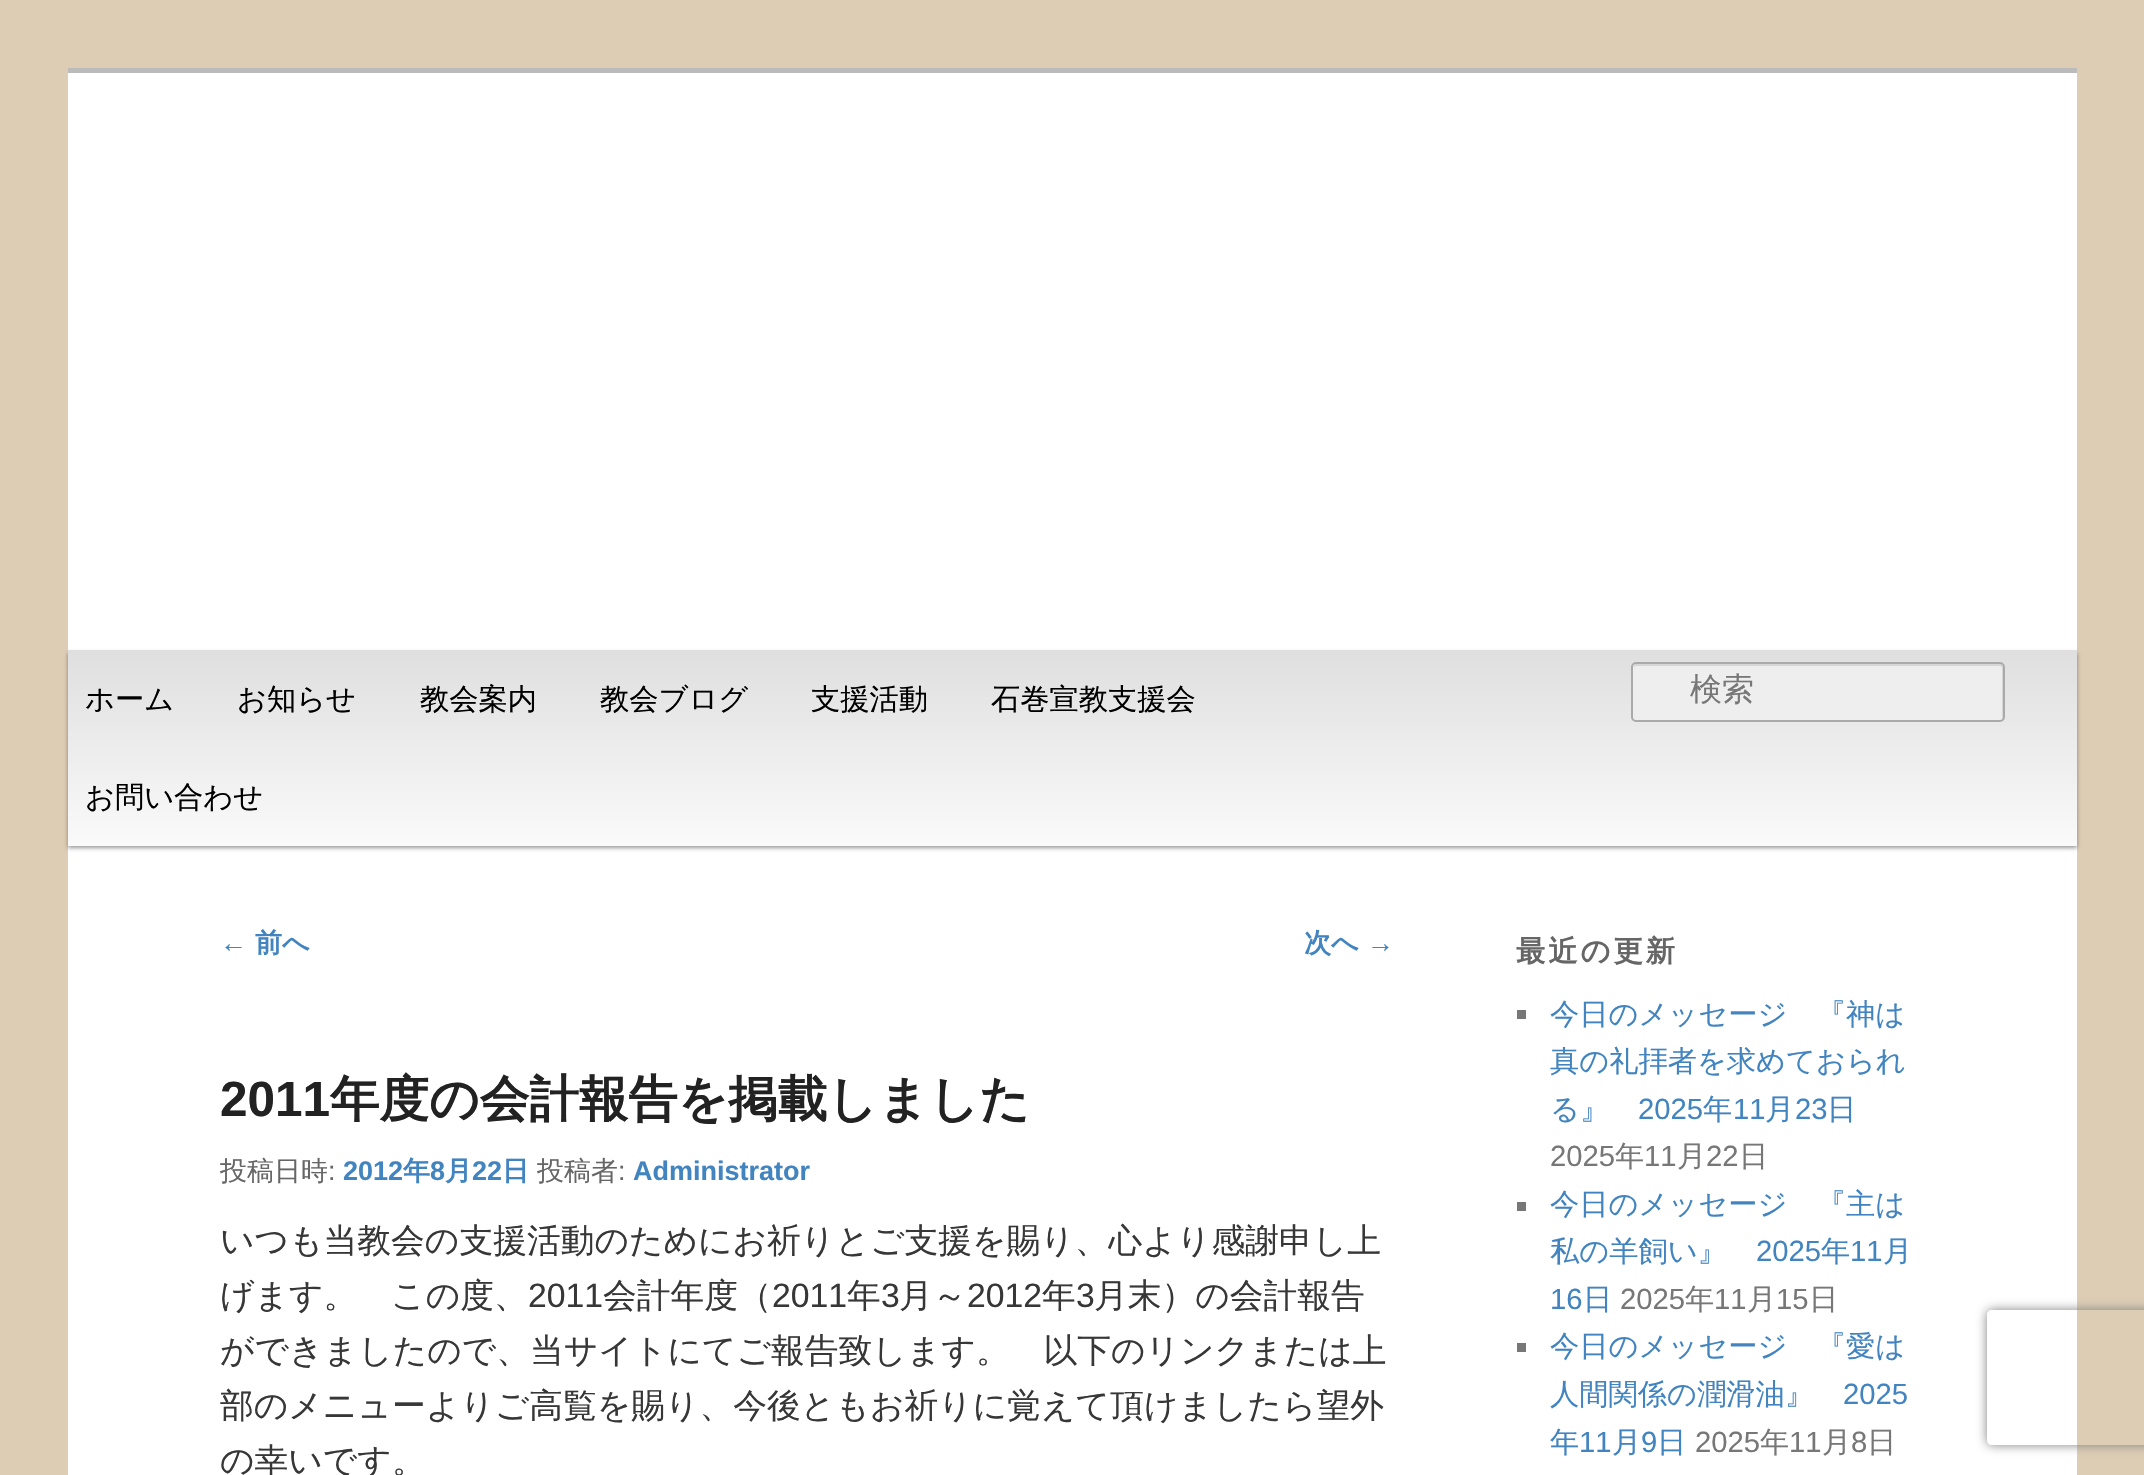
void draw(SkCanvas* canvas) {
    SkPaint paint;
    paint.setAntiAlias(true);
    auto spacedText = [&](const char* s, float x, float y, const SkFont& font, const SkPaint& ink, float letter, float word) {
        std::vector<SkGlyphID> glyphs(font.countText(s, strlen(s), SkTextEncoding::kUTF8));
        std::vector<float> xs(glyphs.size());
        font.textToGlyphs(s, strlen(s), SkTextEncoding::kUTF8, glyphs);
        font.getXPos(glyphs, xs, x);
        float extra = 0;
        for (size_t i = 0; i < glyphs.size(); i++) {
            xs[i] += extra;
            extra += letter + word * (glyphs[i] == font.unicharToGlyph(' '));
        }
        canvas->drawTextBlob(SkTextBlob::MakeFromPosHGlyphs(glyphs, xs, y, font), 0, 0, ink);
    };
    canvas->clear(0xFFDDCDB5);
    paint.setColor(0xFFFFFFFF);
    canvas->drawRect(SkRect::MakeXYWH(68, 73, 2009, 1402), paint);
    paint.setColor(0xFFBBBBBB);
    canvas->drawRect(SkRect::MakeXYWH(68, 68, 2009, 5), paint);
    paint.setColor(0x66000000);
    paint.setMaskFilter(SkMaskFilter::MakeBlur(kNormal_SkBlurStyle, 2));
    canvas->drawRect(SkRect::MakeXYWH(68, 653, 2009, 195), paint);
    paint.setMaskFilter(nullptr);
    {
        const SkColor colors[] = {0xFFDFDFDF, 0xFFFAFAFA};
        const float stops[] = {0, 1};
        const SkPoint ends[] = {{1072, 650}, {1072, 846}};
        paint.setShader(SkGradientShader::MakeLinear(ends, colors, stops, 2, SkTileMode::kClamp));
        paint.setAlpha(255);
    }
    canvas->drawRect(SkRect::MakeXYWH(68, 650, 2009, 196), paint);
    SkFont font1(fontMgr->matchFamilyStyle("WenQuanYi Zen Hei", SkFontStyle(500, SkFontStyle::kNormal_Width, SkFontStyle::kUpright_Slant)), 29.25f);
    font1.setSubpixel(true);
    paint.setShader(nullptr);
    paint.setColor(0xFF000000);
    canvas->drawString("ホーム", 85, 709, font1, paint);
    canvas->drawString("お知らせ", 237, 709, font1, paint);
    canvas->drawString("教会案内", 420, 709, font1, paint);
    canvas->drawString("教会ブログ", 600, 709, font1, paint);
    canvas->drawString("支援活動", 811, 709, font1, paint);
    canvas->drawString("石巻宣教支援会", 991, 709, font1, paint);
    canvas->drawString("お問い合わせ", 85, 807, font1, paint);
    paint.setColor(0xFFEEEEEE);
    canvas->drawRoundRect(SkRect::MakeXYWH(1631, 662, 374, 60), 5, 5, paint);
    paint.setColor(0xFFD6D6D6);
    canvas->drawPath(SkPathBuilder().moveTo(1636, 666).lineTo(2000, 666).cubicTo(2001, 666, 2002, 667, 2002, 668).lineTo(2002, 720).cubicTo(2003, 719, 2003, 719, 2003, 718).lineTo(2003, 666).cubicTo(2003, 665, 2002, 664, 2001, 664).lineTo(1636, 664).cubicTo(1635, 664, 1634, 665, 1634, 666).lineTo(1634, 668).cubicTo(1634, 667, 1635, 666, 1636, 666).close().detach(), paint);
    paint.setStyle(SkPaint::kStroke_Style);
    paint.setStrokeWidth(2);
    paint.setColor(0xFFAAAAAA);
    canvas->drawRoundRect(SkRect::MakeXYWH(1632, 663, 372, 58), 4, 4, paint);
    SkFont font2(fontMgr->matchFamilyStyle("WenQuanYi Zen Hei", SkFontStyle(500, SkFontStyle::kNormal_Width, SkFontStyle::kUpright_Slant)), 32);
    font2.setSubpixel(true);
    paint.setStyle(SkPaint::kFill_Style);
    paint.setColor(0xFF777777);
    canvas->drawString("検索", 1690, 700, font2, paint);
    SkFont font3(fontMgr->matchFamilyStyle("Liberation Sans", SkFontStyle::Normal()), 27);
    font3.setSubpixel(true);
    paint.setColor(0xFF4184BF);
    canvas->drawString("←", 220, 952, font3, paint);
    SkFont font4(fontMgr->matchFamilyStyle("WenQuanYi Zen Hei", SkFontStyle::Bold()), 27);
    font4.setSubpixel(true);
    canvas->drawString("前へ", 255, 952, font4, paint);
    canvas->drawString("次へ", 1304, 952, font4, paint);
    canvas->drawString("→", 1367, 952, font3, paint);
    SkFont font5(fontMgr->matchFamilyStyle("Liberation Sans", SkFontStyle::Bold()), 49.5f);
    font5.setSubpixel(true);
    paint.setColor(0xFF222222);
    canvas->drawString("2011", 220, 1116, font5, paint);
    SkFont font6(fontMgr->matchFamilyStyle("WenQuanYi Zen Hei", SkFontStyle::Bold()), 49.5f);
    font6.setSubpixel(true);
    canvas->drawString("年度の会計報告を掲載しました", 330, 1116, font6, paint);
    SkFont font7(fontMgr->matchFamilyStyle("WenQuanYi Zen Hei", SkFontStyle(500, SkFontStyle::kNormal_Width, SkFontStyle::kUpright_Slant)), 27);
    font7.setSubpixel(true);
    paint.setColor(0xFF666666);
    canvas->drawString("投稿日時", 220, 1180, font7, paint);
    canvas->drawString(":", 328, 1180, font3, paint);
    SkFont font8(fontMgr->matchFamilyStyle("Liberation Sans", SkFontStyle::Bold()), 27);
    font8.setSubpixel(true);
    paint.setColor(0xFF4184BF);
    canvas->drawString("2012", 343, 1180, font8, paint);
    canvas->drawString("年", 403, 1180, font4, paint);
    canvas->drawString("8", 430, 1180, font8, paint);
    canvas->drawString("月", 445, 1180, font4, paint);
    canvas->drawString("22", 472, 1180, font8, paint);
    canvas->drawString("日", 502, 1180, font4, paint);
    paint.setColor(0xFF666666);
    canvas->drawString("投稿者", 537, 1180, font7, paint);
    canvas->drawString(":", 618, 1180, font3, paint);
    paint.setColor(0xFF4184BF);
    canvas->drawString("Administrator", 633, 1180, font8, paint);
    SkFont font9(fontMgr->matchFamilyStyle("WenQuanYi Zen Hei", SkFontStyle(500, SkFontStyle::kNormal_Width, SkFontStyle::kUpright_Slant)), 33.75f);
    font9.setSubpixel(true);
    paint.setColor(0xFF373737);
    canvas->drawString("いつも当教会の支援活動のためにお祈りとご支援を賜り、心より感謝申し上", 220, 1252, font9, paint);
    canvas->drawString("げます。　この度、", 220, 1307, font9, paint);
    SkFont font10(fontMgr->matchFamilyStyle("Liberation Sans", SkFontStyle::Normal()), 33.75f);
    font10.setSubpixel(true);
    canvas->drawString("2011", 528, 1307, font10, paint);
    canvas->drawString("会計年度（", 603, 1307, font9, paint);
    canvas->drawString("2011", 772, 1307, font10, paint);
    canvas->drawString("年", 847, 1307, font9, paint);
    canvas->drawString("3", 881, 1307, font10, paint);
    canvas->drawString("月～", 899, 1307, font9, paint);
    canvas->drawString("2012", 967, 1307, font10, paint);
    canvas->drawString("年", 1042, 1307, font9, paint);
    canvas->drawString("3", 1076, 1307, font10, paint);
    canvas->drawString("月末）の会計報告", 1094, 1307, font9, paint);
    canvas->drawString("ができましたので、当サイトにてご報告致します。　以下のリンクまたは上", 220, 1362, font9, paint);
    canvas->drawString("部のメニューよりご高覧を賜り、今後ともお祈りに覚えて頂けましたら望外", 220, 1417, font9, paint);
    canvas->drawString("の幸いです。", 220, 1472, font9, paint);
    SkFont font11(fontMgr->matchFamilyStyle("WenQuanYi Zen Hei", SkFontStyle::Bold()), 29.25f);
    font11.setSubpixel(true);
    paint.setColor(0xFF666666);
    spacedText("最近の更新", 1516, 961, font11, paint, 3, 0);
    paint.setColor(0xFF777777);
    canvas->drawRect(SkRect::MakeXYWH(1517, 1010, 9, 9), paint);
    paint.setColor(0xFF4184BF);
    canvas->drawString("今日のメッセージ　『神は", 1550, 1024, font1, paint);
    canvas->drawString("真の礼拝者を求めておられ", 1550, 1071, font1, paint);
    canvas->drawString("る』", 1550, 1119, font1, paint);
    SkFont font12(fontMgr->matchFamilyStyle("Liberation Sans", SkFontStyle::Normal()), 29.25f);
    font12.setSubpixel(true);
    canvas->drawString("2025", 1638, 1119, font12, paint);
    canvas->drawString("年", 1703, 1119, font1, paint);
    canvas->drawString("11", 1733, 1119, font12, paint);
    canvas->drawString("月", 1765, 1119, font1, paint);
    canvas->drawString("23", 1795, 1119, font12, paint);
    canvas->drawString("日", 1827, 1119, font1, paint);
    paint.setColor(0xFF777777);
    canvas->drawString("2025", 1550, 1166, font12, paint);
    canvas->drawString("年", 1615, 1166, font1, paint);
    canvas->drawString("11", 1644, 1166, font12, paint);
    canvas->drawString("月", 1677, 1166, font1, paint);
    canvas->drawString("22", 1706, 1166, font12, paint);
    canvas->drawString("日", 1739, 1166, font1, paint);
    canvas->drawRect(SkRect::MakeXYWH(1517, 1202, 9, 9), paint);
    paint.setColor(0xFF4184BF);
    canvas->drawString("今日のメッセージ　『主は", 1550, 1214, font1, paint);
    canvas->drawString("私の羊飼い』", 1550, 1261, font1, paint);
    canvas->drawString("2025", 1756, 1261, font12, paint);
    canvas->drawString("年", 1821, 1261, font1, paint);
    canvas->drawString("11", 1850, 1261, font12, paint);
    canvas->drawString("月", 1883, 1261, font1, paint);
    canvas->drawString("16", 1550, 1309, font12, paint);
    canvas->drawString("日", 1583, 1309, font1, paint);
    paint.setColor(0xFF777777);
    canvas->drawString("2025", 1620, 1309, font12, paint);
    canvas->drawString("年", 1685, 1309, font1, paint);
    canvas->drawString("11", 1714, 1309, font12, paint);
    canvas->drawString("月", 1747, 1309, font1, paint);
    canvas->drawString("15", 1776, 1309, font12, paint);
    canvas->drawString("日", 1809, 1309, font1, paint);
    canvas->drawRect(SkRect::MakeXYWH(1517, 1343, 9, 9), paint);
    paint.setColor(0xFF4184BF);
    canvas->drawString("今日のメッセージ　『愛は", 1550, 1356, font1, paint);
    canvas->drawString("人間関係の潤滑油』", 1550, 1404, font1, paint);
    canvas->drawString("2025", 1843, 1404, font12, paint);
    canvas->drawString("年", 1550, 1452, font1, paint);
    canvas->drawString("11", 1579, 1452, font12, paint);
    canvas->drawString("月", 1612, 1452, font1, paint);
    canvas->drawString("9", 1641, 1452, font12, paint);
    canvas->drawString("日", 1657, 1452, font1, paint);
    paint.setColor(0xFF777777);
    canvas->drawString("2025", 1695, 1452, font12, paint);
    canvas->drawString("年", 1760, 1452, font1, paint);
    canvas->drawString("11", 1789, 1452, font12, paint);
    canvas->drawString("月", 1822, 1452, font1, paint);
    canvas->drawString("8", 1851, 1452, font12, paint);
    canvas->drawString("日", 1867, 1452, font1, paint);
    canvas->save();
    canvas->clipPath(SkPathBuilder(SkPathFillType::kEvenOdd).moveTo(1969, 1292).lineTo(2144, 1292).lineTo(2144, 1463).lineTo(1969, 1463).close().moveTo(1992, 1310).lineTo(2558, 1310).cubicTo(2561, 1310, 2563, 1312, 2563, 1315).lineTo(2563, 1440).cubicTo(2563, 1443, 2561, 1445, 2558, 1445).lineTo(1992, 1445).cubicTo(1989, 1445, 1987, 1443, 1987, 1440).lineTo(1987, 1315).cubicTo(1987, 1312, 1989, 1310, 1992, 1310).close().detach(), true);
    paint.setColor(0xFF808080);
    paint.setMaskFilter(SkMaskFilter::MakeBlur(kNormal_SkBlurStyle, 5.5f));
    canvas->drawRoundRect(SkRect::MakeXYWH(1987, 1310, 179, 135), 5, 5, paint);
    paint.setMaskFilter(nullptr);
    canvas->restore();
}
